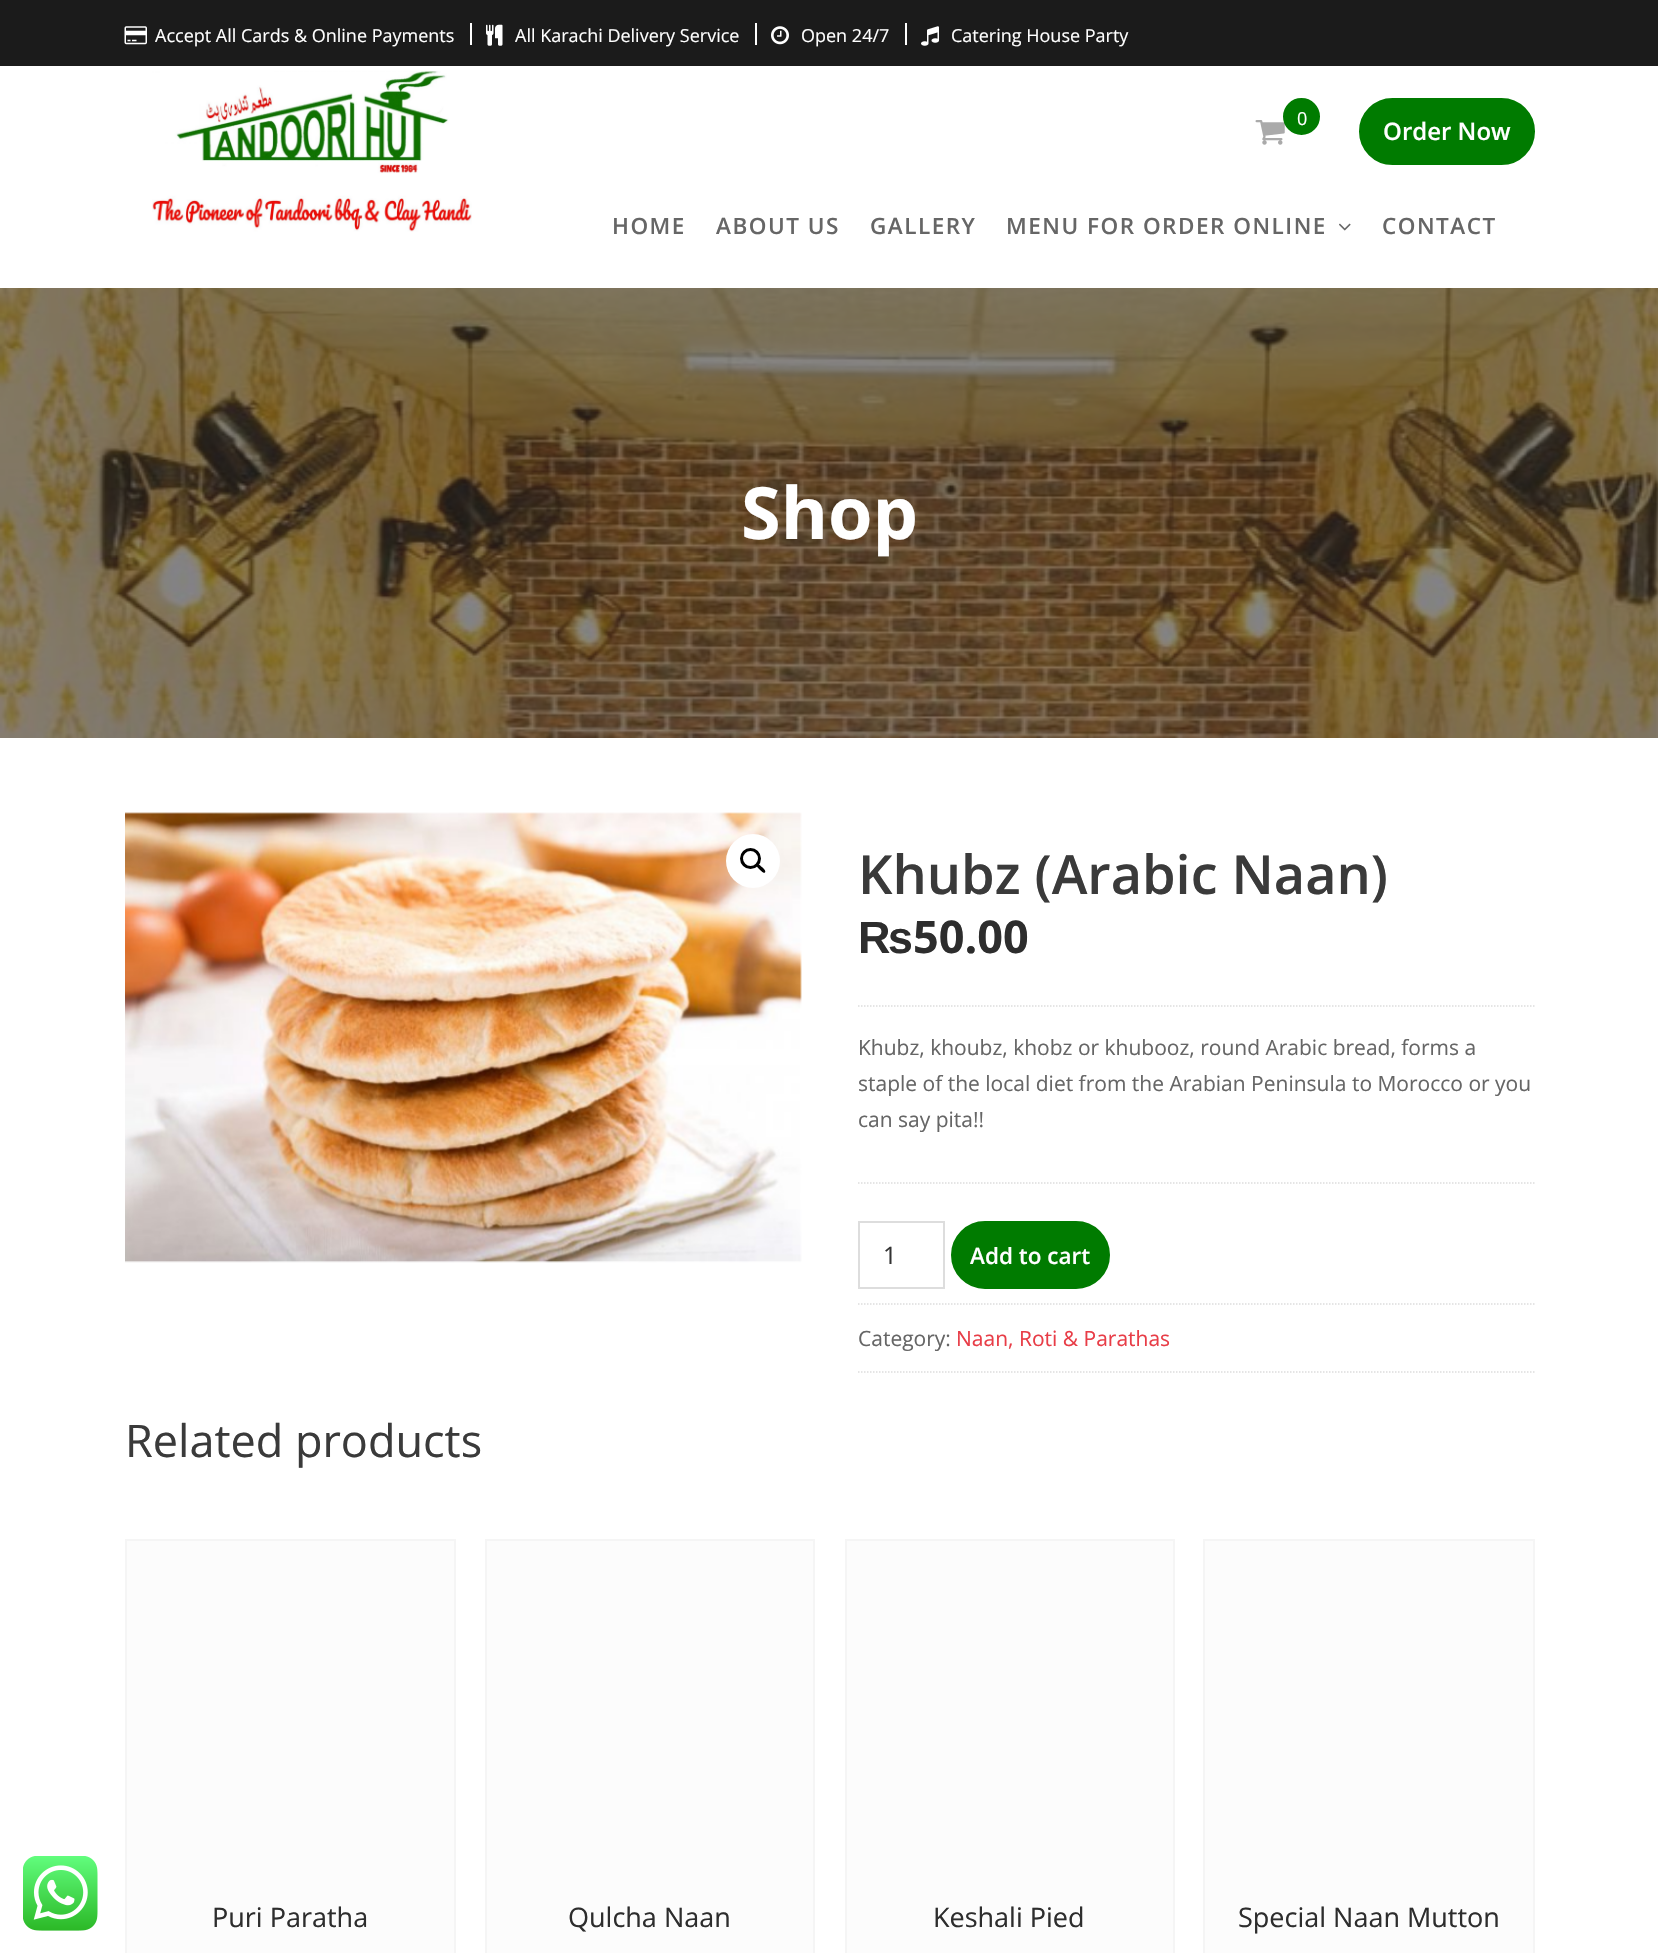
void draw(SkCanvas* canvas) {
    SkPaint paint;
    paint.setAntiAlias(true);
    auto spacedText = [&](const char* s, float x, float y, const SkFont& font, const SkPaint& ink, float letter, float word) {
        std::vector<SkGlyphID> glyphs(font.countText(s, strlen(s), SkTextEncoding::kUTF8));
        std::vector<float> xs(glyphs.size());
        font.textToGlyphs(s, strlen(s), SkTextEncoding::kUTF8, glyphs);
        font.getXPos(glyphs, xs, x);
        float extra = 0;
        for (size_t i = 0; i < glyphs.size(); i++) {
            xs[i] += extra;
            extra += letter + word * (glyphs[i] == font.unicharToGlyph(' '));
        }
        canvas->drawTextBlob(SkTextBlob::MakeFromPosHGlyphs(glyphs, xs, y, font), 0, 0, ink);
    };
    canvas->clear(0xFFFFFFFF);
    canvas->drawImageRect(SkImages::DeferredFromEncodedData(SkData::MakeFromFileName("img1.png")), SkRect::MakeXYWH(23, 1856, 75, 75), SkSamplingOptions());
    paint.setColor(0xFF1B1B1B);
    canvas->drawRect(SkRect::MakeXYWH(0, 0, 1658, 66), paint);
    paint.setColor(0xFFFFFFFF);
    canvas->drawRect(SkRect::MakeXYWH(470, 23, 2, 22), paint);
    canvas->drawImageRect(SkImages::DeferredFromEncodedData(SkData::MakeFromFileName("img2.png")), SkRect::MakeXYWH(124, 26, 23, 19), SkSamplingOptions());
    SkFont font1(fontMgr->matchFamilyStyle("Open Sans", SkFontStyle::Normal()), 18);
    font1.setSubpixel(true);
    canvas->drawString("Accept All Cards & Online Payments", 155, 42, font1, paint);
    canvas->drawRect(SkRect::MakeXYWH(755, 23, 2, 22), paint);
    canvas->drawImageRect(SkImages::DeferredFromEncodedData(SkData::MakeFromFileName("img3.png")), SkRect::MakeXYWH(486, 24, 17, 22), SkSamplingOptions());
    canvas->drawString("All Karachi Delivery Service", 515, 42, font1, paint);
    canvas->drawRect(SkRect::MakeXYWH(905, 23, 2, 22), paint);
    canvas->drawImageRect(SkImages::DeferredFromEncodedData(SkData::MakeFromFileName("img4.png")), SkRect::MakeXYWH(771, 26, 18, 19), SkSamplingOptions());
    canvas->drawString("Open 24/7", 801, 42, font1, paint);
    canvas->drawImageRect(SkImages::DeferredFromEncodedData(SkData::MakeFromFileName("img5.png")), SkRect::MakeXYWH(921, 26, 18, 20), SkSamplingOptions());
    canvas->drawString("Catering House Party", 951, 42, font1, paint);
    canvas->drawImageRect(SkImages::DeferredFromEncodedData(SkData::MakeFromFileName("img6.png")), SkRect::MakeXYWH(152, 71, 320, 161), SkSamplingOptions());
    canvas->drawImageRect(SkImages::DeferredFromEncodedData(SkData::MakeFromFileName("img7.png")), SkRect::MakeXYWH(1255, 120, 30, 25), SkSamplingOptions());
    paint.setColor(0xFF007B00);
    canvas->drawCircle(1301.5f, 116.5f, 17.5f, paint);
    paint.setStyle(SkPaint::kStroke_Style);
    paint.setStrokeWidth(2);
    canvas->drawCircle(1301.5f, 116.5f, 17.5f, paint);
    paint.setStyle(SkPaint::kFill_Style);
    paint.setColor(0xFFFFFFFF);
    canvas->drawString("0", 1297, 125, font1, paint);
    paint.setColor(0xFF007B00);
    canvas->drawRoundRect(SkRect::MakeXYWH(1360, 99, 174, 65), 32.5f, 32.5f, paint);
    paint.setStyle(SkPaint::kStroke_Style);
    canvas->drawRoundRect(SkRect::MakeXYWH(1360, 99, 174, 65), 32.5f, 32.5f, paint);
    SkFont font2(fontMgr->matchFamilyStyle("Open Sans", SkFontStyle(600, SkFontStyle::kNormal_Width, SkFontStyle::kUpright_Slant)), 24);
    font2.setSubpixel(true);
    paint.setStyle(SkPaint::kFill_Style);
    paint.setColor(0xFFFFFFFF);
    canvas->drawString("Order Now", 1383, 140, font2, paint);
    SkFont font3(fontMgr->matchFamilyStyle("Open Sans", SkFontStyle(600, SkFontStyle::kNormal_Width, SkFontStyle::kUpright_Slant)), 22.5f);
    font3.setSubpixel(true);
    paint.setColor(0xFF666666);
    spacedText("HOME", 612, 234, font3, paint, 1.5f, 0);
    spacedText("ABOUT US", 716, 234, font3, paint, 1.5f, 0);
    spacedText("GALLERY", 870, 234, font3, paint, 1.5f, 0);
    spacedText("MENU FOR ORDER ONLINE", 1006, 234, font3, paint, 1.5f, 0);
    canvas->drawImageRect(SkImages::DeferredFromEncodedData(SkData::MakeFromFileName("img8.png")), SkRect::MakeXYWH(1339, 223, 12, 8), SkSamplingOptions());
    spacedText("CONTACT", 1382, 234, font3, paint, 1.5f, 0);
    canvas->drawImageRect(SkImages::DeferredFromEncodedData(SkData::MakeFromFileName("img9.png")), SkRect::MakeXYWH(0, 288, 1658, 450), SkSamplingOptions());
    SkFont font4(fontMgr->matchFamilyStyle("Open Sans", SkFontStyle::Bold()), 72);
    font4.setSubpixel(true);
    paint.setColor(0xFFFFFFFF);
    canvas->drawString("Shop", 741, 539, font4, paint);
    canvas->drawImageRect(SkImages::DeferredFromEncodedData(SkData::MakeFromFileName("img10.png")), SkRect::MakeXYWH(125, 812, 677, 451), SkSamplingOptions());
    canvas->drawCircle(753, 861, 27, paint);
    paint.setStyle(SkPaint::kStroke_Style);
    paint.setStrokeWidth(3);
    paint.setColor(0xFF000000);
    canvas->drawCircle(750.5f, 858.5f, 9, paint);
    paint.setStyle(SkPaint::kFill_Style);
    canvas->drawPath(SkPathBuilder().moveTo(756.5f, 864).cubicTo(758, 862.5f, 761, 866.5f, 762, 867).cubicTo(763, 868, 766.5f, 871, 765, 872.5f).cubicTo(763.5f, 874, 760.5f, 870, 759.5f, 869.5f).cubicTo(759, 868.5f, 755, 865.5f, 756.5f, 864).close().detach(), paint);
    SkFont font5(fontMgr->matchFamilyStyle("Open Sans", SkFontStyle(600, SkFontStyle::kNormal_Width, SkFontStyle::kUpright_Slant)), 54);
    font5.setSubpixel(true);
    paint.setColor(0xFF3A3A3A);
    canvas->drawString("Khubz (Arabic Naan)", 858, 894, font5, paint);
    SkFont font6(fontMgr->matchFamilyStyle("Liberation Sans", SkFontStyle::Bold()), 45);
    font6.setSubpixel(true);
    paint.setColor(0xFF2D2D2D);
    canvas->drawString("₨", 858, 953, font6, paint);
    SkFont font7(fontMgr->matchFamilyStyle("Open Sans", SkFontStyle::Bold()), 45);
    font7.setSubpixel(true);
    canvas->drawString("50.00", 913, 953, font7, paint);
    paint.setStyle(SkPaint::kStroke_Style);
    paint.setStrokeWidth(1.5f);
    paint.setColor(0xFFDDDDDD);
    paint.setPathEffect(SkDashPathEffect::Make({{1.5f, 1.5f}}, 0));
    canvas->drawPath(SkPathBuilder().moveTo(858, 1006).lineTo(1534.5f, 1006).detach(), paint);
    paint.setPathEffect(nullptr);
    paint.setPathEffect(SkDashPathEffect::Make({{1.5f, 1.5f}}, 0));
    canvas->drawPath(SkPathBuilder().moveTo(858, 1183).lineTo(1534.5f, 1183).detach(), paint);
    paint.setPathEffect(nullptr);
    SkFont font8(fontMgr->matchFamilyStyle("Open Sans", SkFontStyle::Normal()), 21);
    font8.setSubpixel(true);
    paint.setStyle(SkPaint::kFill_Style);
    paint.setColor(0xFF666666);
    canvas->drawString("Khubz, khoubz, khobz or khubooz, round Arabic bread, forms a", 858, 1055, font8, paint);
    canvas->drawString("staple of the local diet from the Arabian Peninsula to Morocco or you", 858, 1091, font8, paint);
    canvas->drawString("can say pita!!", 858, 1127, font8, paint);
    paint.setStyle(SkPaint::kStroke_Style);
    paint.setColor(0xFFDDDDDD);
    paint.setPathEffect(SkDashPathEffect::Make({{1.5f, 1.5f}}, 0));
    canvas->drawPath(SkPathBuilder().moveTo(858, 1304).lineTo(1534.5f, 1304).detach(), paint);
    paint.setPathEffect(nullptr);
    paint.setStrokeWidth(2);
    canvas->drawRect(SkRect::MakeXYWH(859, 1222, 85, 66), paint);
    SkFont font9(fontMgr->matchFamilyStyle("Open Sans", SkFontStyle::Normal()), 24);
    font9.setSubpixel(true);
    paint.setStyle(SkPaint::kFill_Style);
    paint.setColor(0xFF333333);
    canvas->drawString("1", 883, 1264, font9, paint);
    paint.setColor(0xFF007B00);
    canvas->drawRoundRect(SkRect::MakeXYWH(952, 1222, 157, 66), 33, 33, paint);
    paint.setStyle(SkPaint::kStroke_Style);
    canvas->drawRoundRect(SkRect::MakeXYWH(952, 1222, 157, 66), 33, 33, paint);
    paint.setStyle(SkPaint::kFill_Style);
    paint.setColor(0xFFFFFFFF);
    canvas->drawString("Add to cart", 970, 1264, font3, paint);
    paint.setStyle(SkPaint::kStroke_Style);
    paint.setStrokeWidth(1.5f);
    paint.setColor(0xFFDDDDDD);
    paint.setPathEffect(SkDashPathEffect::Make({{1.5f, 1.5f}}, 0));
    canvas->drawPath(SkPathBuilder().moveTo(858, 1372).lineTo(1534.5f, 1372).detach(), paint);
    paint.setPathEffect(nullptr);
    paint.setStyle(SkPaint::kFill_Style);
    paint.setColor(0xFF666666);
    canvas->drawString("Category:", 858, 1346, font8, paint);
    paint.setColor(0xFFE83D47);
    canvas->drawString("Naan, Roti & Parathas", 956, 1346, font8, paint);
    SkFont font10(fontMgr->matchFamilyStyle("Open Sans", SkFontStyle::Normal()), 45);
    font10.setSubpixel(true);
    paint.setColor(0xFF3A3A3A);
    canvas->drawString("Related products", 125, 1457, font10, paint);
    paint.setColor(0xFFFCFCFC);
    canvas->drawRect(SkRect::MakeXYWH(126, 1540, 329, 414), paint);
    paint.setStyle(SkPaint::kStroke_Style);
    paint.setStrokeWidth(2);
    paint.setColor(0xFFF5F5F5);
    canvas->drawRect(SkRect::MakeXYWH(126, 1540, 329, 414), paint);
    SkFont font11(fontMgr->matchFamilyStyle("Open Sans", SkFontStyle::Normal()), 27);
    font11.setSubpixel(true);
    paint.setStyle(SkPaint::kFill_Style);
    paint.setColor(0xFF2D2D2D);
    canvas->drawString("Puri Paratha", 212, 1927, font11, paint);
    paint.setColor(0xFFFCFCFC);
    canvas->drawRect(SkRect::MakeXYWH(486, 1540, 328, 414), paint);
    paint.setStyle(SkPaint::kStroke_Style);
    paint.setColor(0xFFF5F5F5);
    canvas->drawRect(SkRect::MakeXYWH(486, 1540, 328, 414), paint);
    paint.setStyle(SkPaint::kFill_Style);
    paint.setColor(0xFF2D2D2D);
    canvas->drawString("Qulcha Naan", 568, 1927, font11, paint);
    paint.setColor(0xFFFCFCFC);
    canvas->drawRect(SkRect::MakeXYWH(846, 1540, 328, 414), paint);
    paint.setStyle(SkPaint::kStroke_Style);
    paint.setColor(0xFFF5F5F5);
    canvas->drawRect(SkRect::MakeXYWH(846, 1540, 328, 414), paint);
    paint.setStyle(SkPaint::kFill_Style);
    paint.setColor(0xFF2D2D2D);
    canvas->drawString("Keshali Pied", 933, 1927, font11, paint);
    paint.setColor(0xFFFCFCFC);
    canvas->drawRect(SkRect::MakeXYWH(1204, 1540, 330, 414), paint);
    paint.setStyle(SkPaint::kStroke_Style);
    paint.setColor(0xFFF5F5F5);
    canvas->drawRect(SkRect::MakeXYWH(1204, 1540, 330, 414), paint);
    paint.setStyle(SkPaint::kFill_Style);
    paint.setColor(0xFF2D2D2D);
    canvas->drawString("Special Naan Mutton", 1238, 1927, font11, paint);
}
